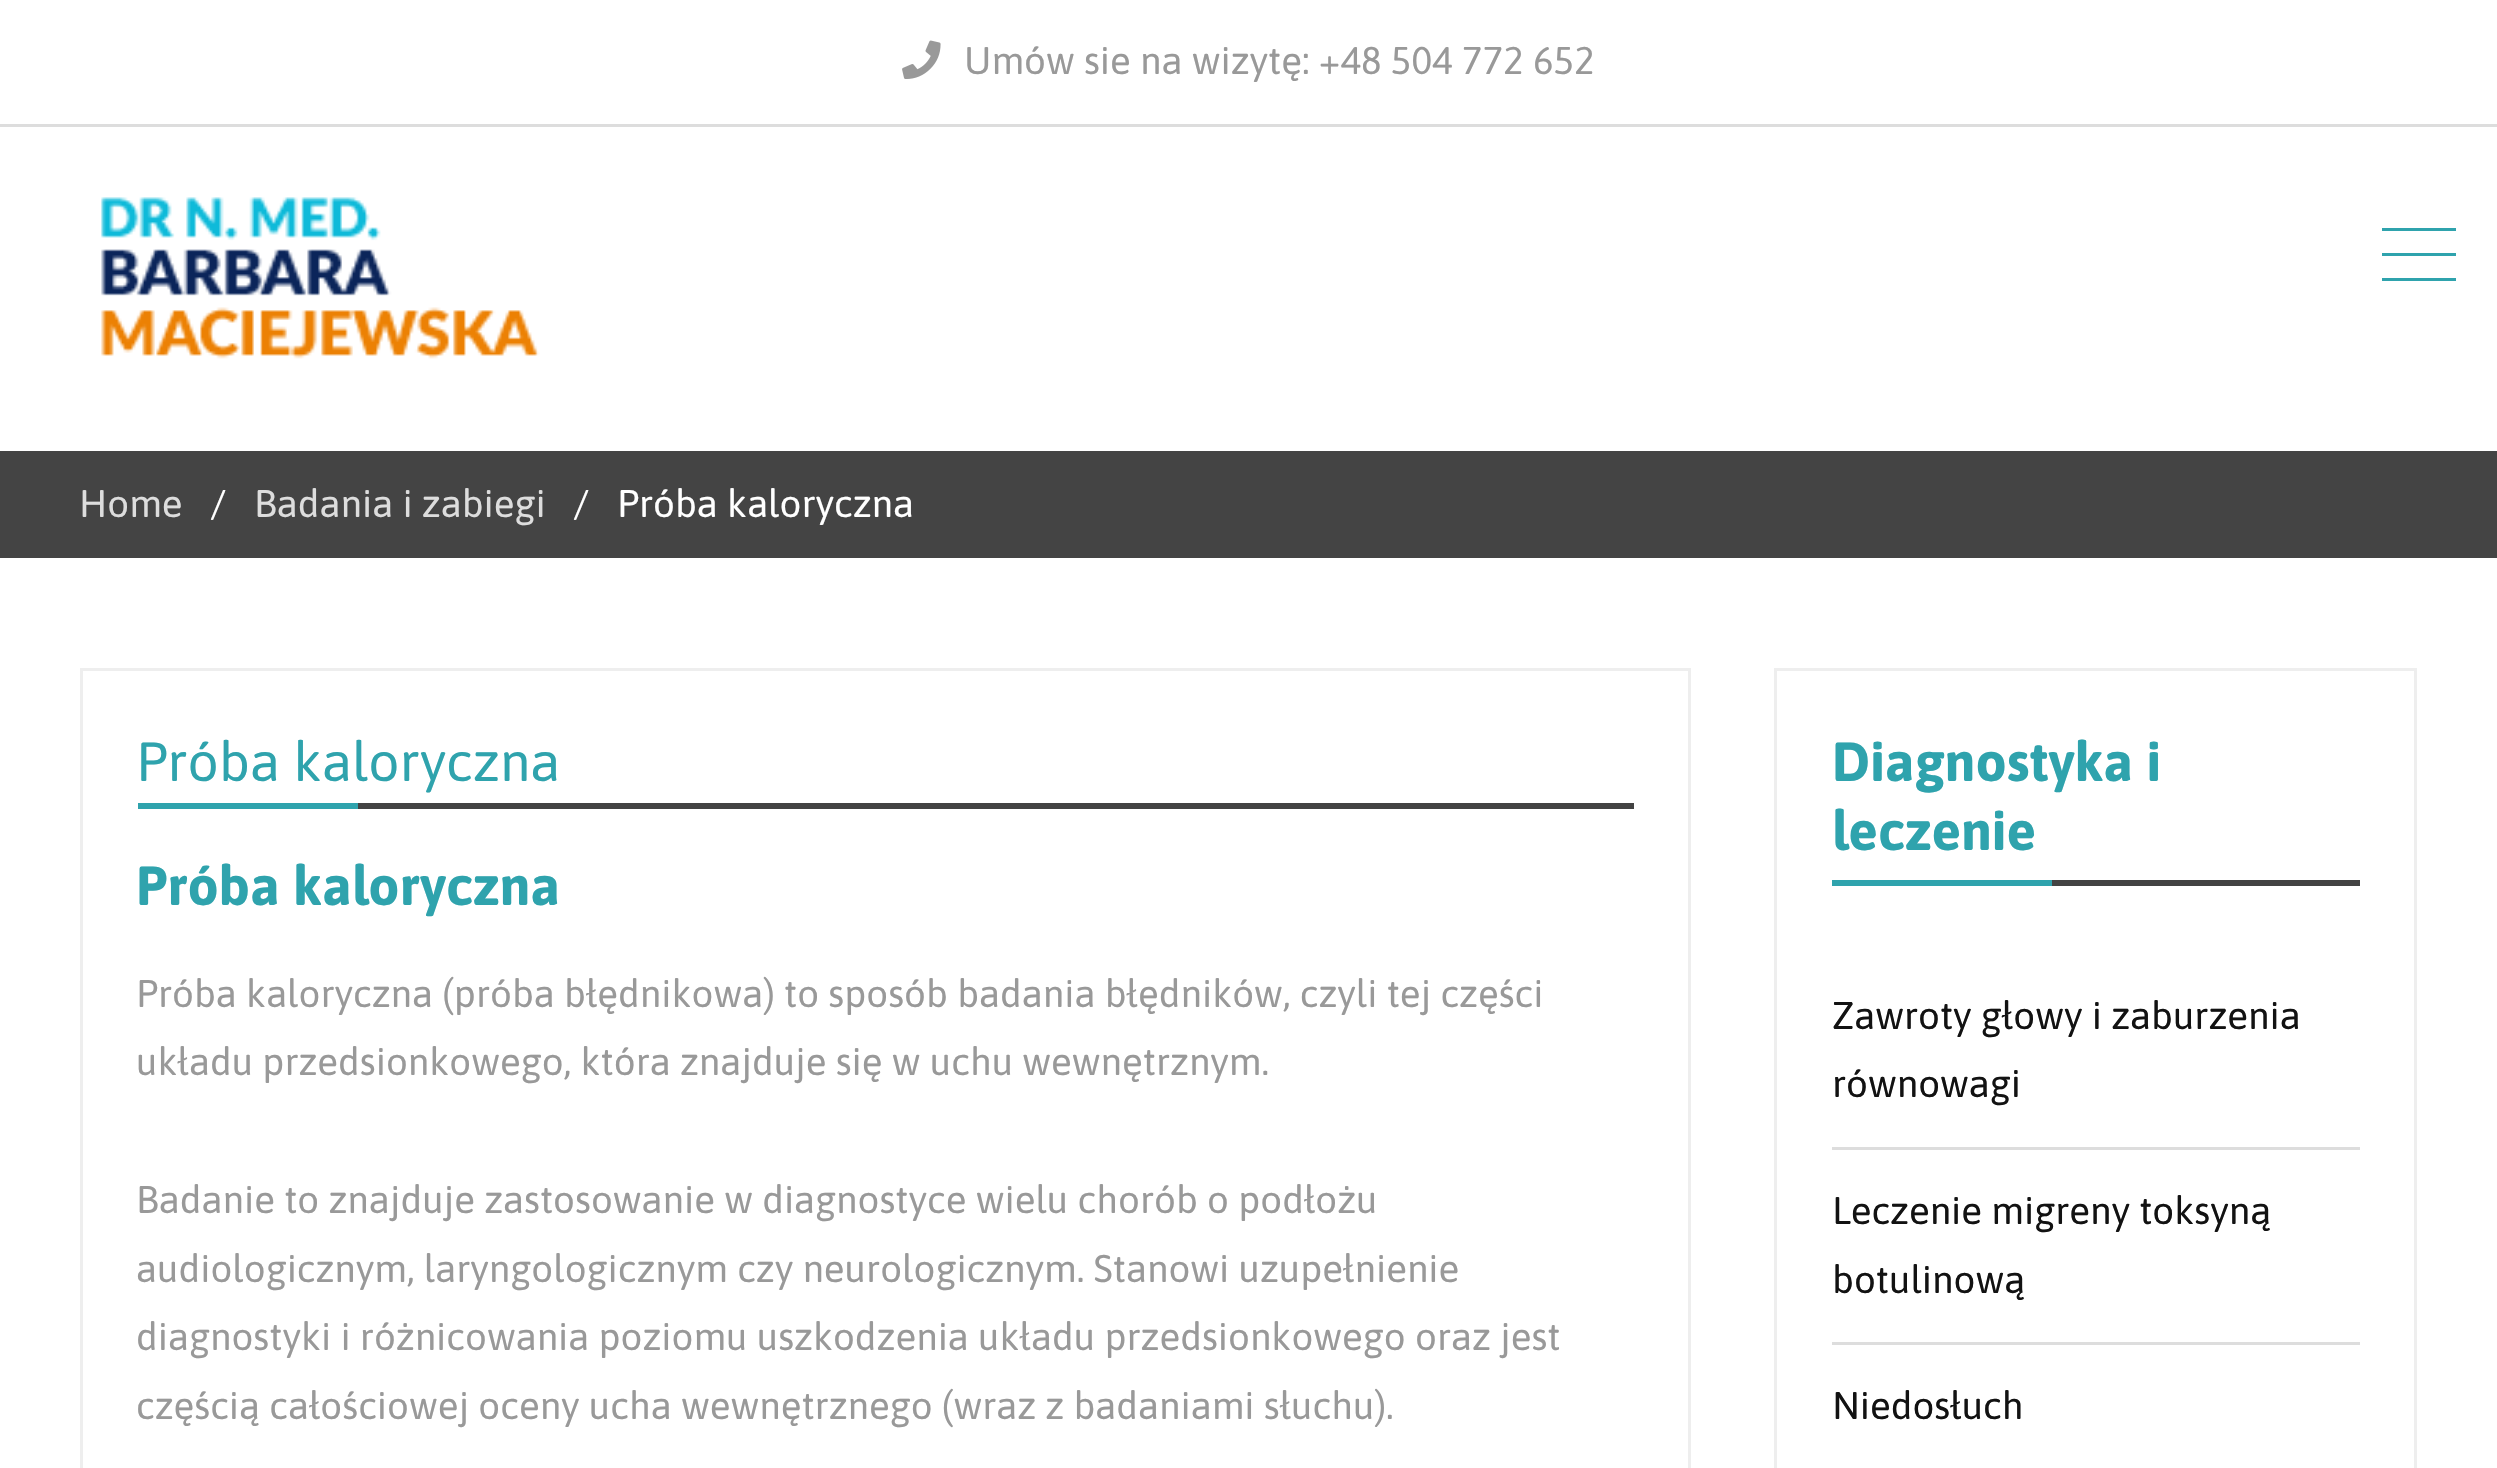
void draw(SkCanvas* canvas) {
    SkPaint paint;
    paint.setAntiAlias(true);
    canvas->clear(0xFFFFFFFF);
    paint.setColor(0xFFDDDDDD);
    canvas->drawRect(SkRect::MakeXYWH(0, 124, 2497, 3), paint);
    canvas->drawImageRect(SkImages::DeferredFromEncodedData(SkData::MakeFromFileName("img1.png")), SkRect::MakeXYWH(902, 40, 39, 39), SkSamplingOptions());
    SkFont font1(fontMgr->matchFamilyStyle("Asap", SkFontStyle::Normal()), 38.5f);
    font1.setSubpixel(true);
    paint.setColor(0xFF999999);
    canvas->drawString("Umów sie na wizytę: +48 504 772 652", 964, 74, font1, paint);
    canvas->drawImageRect(SkImages::DeferredFromEncodedData(SkData::MakeFromFileName("img2.png")), SkRect::MakeXYWH(101, 197, 439, 162), SkSamplingOptions());
    paint.setColor(0xFF2FA3AD);
    canvas->drawRect(SkRect::MakeXYWH(2382, 228, 74, 3), paint);
    canvas->drawRect(SkRect::MakeXYWH(2382, 253, 74, 3), paint);
    canvas->drawRect(SkRect::MakeXYWH(2382, 278, 74, 3), paint);
    paint.setColor(0xFF444444);
    canvas->drawRect(SkRect::MakeXYWH(0, 451, 2497, 107), paint);
    paint.setColor(0xFFDDDDDD);
    canvas->drawString("Home", 79, 517, font1, paint);
    paint.setColor(0xFFFFFFFF);
    canvas->drawString("/", 210, 517, font1, paint);
    paint.setColor(0xFFDDDDDD);
    canvas->drawString("Badania i zabiegi", 254, 517, font1, paint);
    paint.setColor(0xFFFFFFFF);
    canvas->drawString("/", 573, 517, font1, paint);
    canvas->drawString("Próba kaloryczna", 617, 517, font1, paint);
    paint.setStyle(SkPaint::kStroke_Style);
    paint.setStrokeWidth(3);
    paint.setColor(0xFFEEEEEE);
    canvas->drawRect(SkRect::MakeXYWH(81.5f, 669.5f, 1608, 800), paint);
    SkFont font2(fontMgr->matchFamilyStyle("Asap", SkFontStyle::Normal()), 55);
    font2.setSubpixel(true);
    paint.setStyle(SkPaint::kFill_Style);
    paint.setColor(0xFF2FA3AD);
    canvas->drawString("Próba kaloryczna", 136, 781, font2, paint);
    paint.setColor(0xFF434343);
    canvas->drawRect(SkRect::MakeXYWH(358, 803, 1276, 6), paint);
    paint.setColor(0xFF2FA3AD);
    canvas->drawRect(SkRect::MakeXYWH(138, 803, 220, 6), paint);
    SkFont font3(fontMgr->matchFamilyStyle("Asap", SkFontStyle::Bold()), 55);
    font3.setSubpixel(true);
    canvas->drawString("Próba kaloryczna", 136, 905, font3, paint);
    paint.setColor(0xFF999999);
    canvas->drawString("Próba kaloryczna (próba błędnikowa) to sposób badania błędników, czyli tej części", 136, 1007, font1, paint);
    canvas->drawString("układu przedsionkowego, która znajduje się w uchu wewnętrznym.", 136, 1075, font1, paint);
    canvas->drawString("Badanie to znajduje zastosowanie w diagnostyce wielu chorób o podłożu", 136, 1213, font1, paint);
    canvas->drawString("audiologicznym, laryngologicznym czy neurologicznym. Stanowi uzupełnienie", 136, 1282, font1, paint);
    canvas->drawString("diagnostyki i różnicowania poziomu uszkodzenia układu przedsionkowego oraz jest", 136, 1350, font1, paint);
    canvas->drawString("częścią całościowej oceny ucha wewnętrznego (wraz z badaniami słuchu).", 136, 1419, font1, paint);
    paint.setStyle(SkPaint::kStroke_Style);
    paint.setColor(0xFFEEEEEE);
    canvas->drawRect(SkRect::MakeXYWH(1775.5f, 669.5f, 640, 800), paint);
    paint.setStyle(SkPaint::kFill_Style);
    paint.setColor(0xFF2FA3AD);
    canvas->drawString("Diagnostyka i", 1832, 781, font3, paint);
    canvas->drawString("leczenie", 1832, 850, font3, paint);
    paint.setColor(0xFF434343);
    canvas->drawRect(SkRect::MakeXYWH(2052, 880, 308, 6), paint);
    paint.setColor(0xFF2FA3AD);
    canvas->drawRect(SkRect::MakeXYWH(1832, 880, 220, 6), paint);
    paint.setColor(0xFFDDDDDD);
    canvas->drawRect(SkRect::MakeXYWH(1832, 1147, 528, 3), paint);
    paint.setColor(0xFF121212);
    canvas->drawString("Zawroty głowy i zaburzenia", 1832, 1029, font1, paint);
    canvas->drawString("równowagi", 1832, 1097, font1, paint);
    paint.setColor(0xFFDDDDDD);
    canvas->drawRect(SkRect::MakeXYWH(1832, 1342, 528, 3), paint);
    paint.setColor(0xFF121212);
    canvas->drawString("Leczenie migreny toksyną", 1832, 1224, font1, paint);
    canvas->drawString("botulinową", 1832, 1293, font1, paint);
    canvas->drawString("Niedosłuch", 1832, 1419, font1, paint);
}
